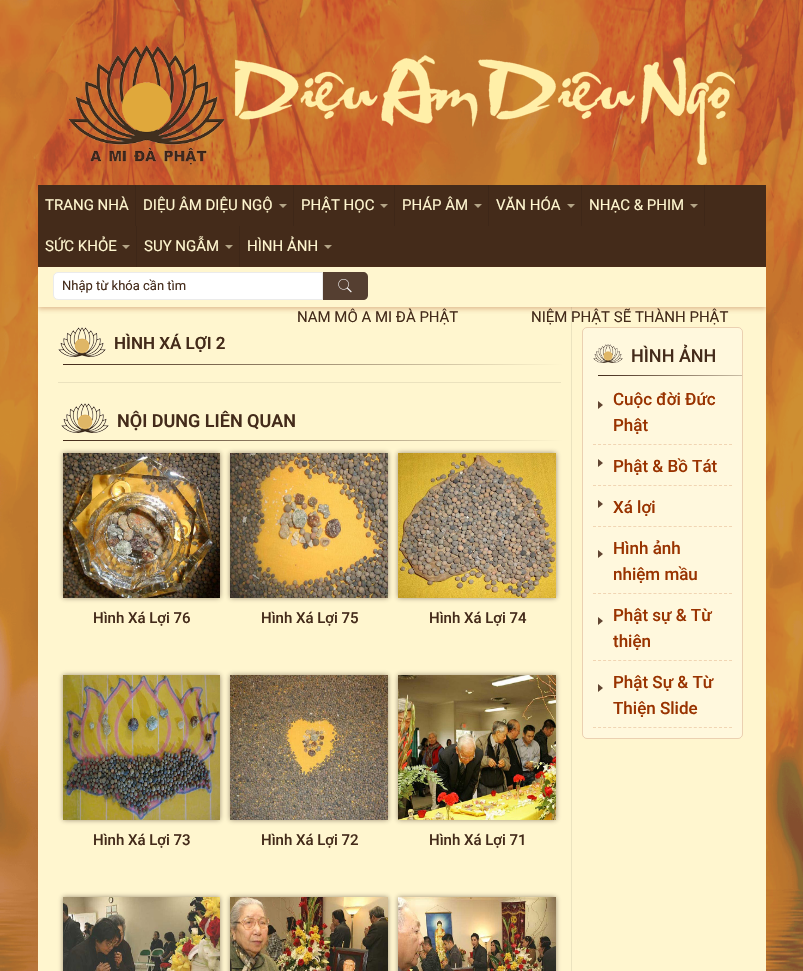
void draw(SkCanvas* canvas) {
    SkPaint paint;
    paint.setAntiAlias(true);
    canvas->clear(0xFFB9643D);
    canvas->drawImageRect(SkImages::DeferredFromEncodedData(SkData::MakeFromFileName("img1.png")), SkRect::MakeXYWH(0, 0, 803, 971), SkSamplingOptions());
    canvas->drawImageRect(SkImages::DeferredFromEncodedData(SkData::MakeFromFileName("img2.png")), SkRect::MakeXYWH(68, 45, 157, 120), SkSamplingOptions());
    canvas->drawImageRect(SkImages::DeferredFromEncodedData(SkData::MakeFromFileName("img3.png")), SkRect::MakeXYWH(235, 55, 500, 110), SkSamplingOptions());
    paint.setColor(0xFF442B1A);
    canvas->drawRect(SkRect::MakeXYWH(38, 185, 728, 82), paint);
    paint.setColor(0xFF3E2718);
    canvas->drawRect(SkRect::MakeXYWH(135, 185, 1, 41), paint);
    SkFont font1(fontMgr->matchFamilyStyle("Roboto", SkFontStyle::Normal()), 15);
    font1.setSubpixel(true);
    paint.setColor(0xFFFFF6CF);
    canvas->drawString("TRANG NHÀ", 45, 210, font1, paint);
    paint.setColor(0xFF3E2718);
    canvas->drawRect(SkRect::MakeXYWH(293, 185, 1, 41), paint);
    paint.setColor(0xFFFFF6CF);
    canvas->drawString("DIỆU ÂM DIỆU NGỘ", 143, 210, font1, paint);
    paint.setColor(0xFFB4A587);
    canvas->drawPath(SkPathBuilder().moveTo(279, 204).lineTo(287, 204).lineTo(283, 208).close().detach(), paint);
    paint.setColor(0xFF3E2718);
    canvas->drawRect(SkRect::MakeXYWH(394, 185, 1, 41), paint);
    paint.setColor(0xFFFFF6CF);
    canvas->drawString("PHẬT HỌC", 301, 210, font1, paint);
    paint.setColor(0xFFB4A587);
    canvas->drawPath(SkPathBuilder().moveTo(380, 204).lineTo(388, 204).lineTo(384, 208).close().detach(), paint);
    paint.setColor(0xFF3E2718);
    canvas->drawRect(SkRect::MakeXYWH(488, 185, 1, 41), paint);
    paint.setColor(0xFFFFF6CF);
    canvas->drawString("PHÁP ÂM", 402, 210, font1, paint);
    paint.setColor(0xFFB4A587);
    canvas->drawPath(SkPathBuilder().moveTo(474, 204).lineTo(482, 204).lineTo(478, 208).close().detach(), paint);
    paint.setColor(0xFF3E2718);
    canvas->drawRect(SkRect::MakeXYWH(581, 185, 1, 41), paint);
    paint.setColor(0xFFFFF6CF);
    canvas->drawString("VĂN HÓA", 496, 210, font1, paint);
    paint.setColor(0xFFB4A587);
    canvas->drawPath(SkPathBuilder().moveTo(567, 204).lineTo(575, 204).lineTo(571, 208).close().detach(), paint);
    paint.setColor(0xFF3E2718);
    canvas->drawRect(SkRect::MakeXYWH(704, 185, 1, 41), paint);
    paint.setColor(0xFFFFF6CF);
    canvas->drawString("NHẠC & PHIM", 589, 210, font1, paint);
    paint.setColor(0xFFB4A587);
    canvas->drawPath(SkPathBuilder().moveTo(690, 204).lineTo(698, 204).lineTo(694, 208).close().detach(), paint);
    paint.setColor(0xFFFFF6CF);
    canvas->drawRect(SkRect::MakeXYWH(38, 307, 728, 664), paint);
    canvas->save();
    canvas->clipRect(SkRect::MakeXYWH(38, 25, 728, 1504));
    paint.setColor(0x4D993300);
    paint.setMaskFilter(SkMaskFilter::MakeBlur(kNormal_SkBlurStyle, 2.5f));
    canvas->drawRect(SkRect::MakeXYWH(38, 269, 728, 40), paint);
    paint.setMaskFilter(nullptr);
    canvas->restore();
    paint.setColor(0x17000000);
    canvas->drawRect(SkRect::MakeXYWH(136, 226, 1, 41), paint);
    paint.setColor(0xFFFFF6CF);
    canvas->drawString("SỨC KHỎE", 45, 251, font1, paint);
    paint.setColor(0xFFB4A587);
    canvas->drawPath(SkPathBuilder().moveTo(122, 245).lineTo(130, 245).lineTo(126, 249).close().detach(), paint);
    paint.setColor(0x17000000);
    canvas->drawRect(SkRect::MakeXYWH(239, 226, 1, 41), paint);
    paint.setColor(0xFFFFF6CF);
    canvas->drawString("SUY NGẪM", 144, 251, font1, paint);
    paint.setColor(0xFFB4A587);
    canvas->drawPath(SkPathBuilder().moveTo(225, 245).lineTo(233, 245).lineTo(229, 249).close().detach(), paint);
    paint.setColor(0xFFFFF6CF);
    canvas->drawString("HÌNH ẢNH", 247, 251, font1, paint);
    paint.setColor(0xFFB4A587);
    canvas->drawPath(SkPathBuilder().moveTo(324, 245).lineTo(332, 245).lineTo(328, 249).close().detach(), paint);
    paint.setColor(0xFFFFF6CF);
    canvas->drawRect(SkRect::MakeXYWH(38, 267, 728, 40), paint);
    paint.setColor(0xFFFFFFFF);
    canvas->drawPath(SkPathBuilder().moveTo(58, 272.5f).lineTo(322.5f, 272.5f).lineTo(322.5f, 299.5f).lineTo(58, 299.5f).cubicTo(55.5f, 299.5f, 53.5f, 297.5f, 53.5f, 295).lineTo(53.5f, 277).cubicTo(53.5f, 274.5f, 55.5f, 272.5f, 58, 272.5f).close().detach(), paint);
    paint.setStyle(SkPaint::kStroke_Style);
    paint.setStrokeWidth(1);
    paint.setColor(0xFFEBEBEB);
    canvas->drawPath(SkPathBuilder().moveTo(58, 272.5f).lineTo(322.5f, 272.5f).lineTo(322.5f, 299.5f).lineTo(58, 299.5f).cubicTo(55.5f, 299.5f, 53.5f, 297.5f, 53.5f, 295).lineTo(53.5f, 277).cubicTo(53.5f, 274.5f, 55.5f, 272.5f, 58, 272.5f).close().detach(), paint);
    SkFont font2(fontMgr->matchFamilyStyle("Roboto", SkFontStyle::Normal()), 13);
    font2.setSubpixel(true);
    paint.setStyle(SkPaint::kFill_Style);
    paint.setColor(0xFF442B1A);
    canvas->drawString("Nhập từ khóa cần tìm", 62, 290, font2, paint);
    paint.setColor(0xFF553F31);
    canvas->drawPath(SkPathBuilder().moveTo(323, 272).lineTo(363, 272).cubicTo(366, 272, 368, 274, 368, 277).lineTo(368, 295).cubicTo(368, 298, 366, 300, 363, 300).lineTo(323, 300).close().detach(), paint);
    canvas->drawImageRect(SkImages::DeferredFromEncodedData(SkData::MakeFromFileName("img4.png")), SkRect::MakeXYWH(338, 279, 14, 14), SkSamplingOptions());
    paint.setColor(0xFF442B1A);
    canvas->drawString("NAM MÔ A MI ĐÀ PHẬT", 297, 322, font1, paint);
    canvas->drawString("NIỆM PHẬT SẼ THÀNH PHẬT", 531, 322, font1, paint);
    canvas->drawImageRect(SkImages::DeferredFromEncodedData(SkData::MakeFromFileName("img5.png")), SkRect::MakeXYWH(58, 327, 48, 30), SkSamplingOptions());
    SkFont font3(fontMgr->matchFamilyStyle("Roboto", SkFontStyle(600, SkFontStyle::kNormal_Width, SkFontStyle::kUpright_Slant)), 17);
    font3.setSubpixel(true);
    canvas->drawString("HÌNH XÁ LỢI 2", 114, 349, font3, paint);
    {
        const SkColor colors[] = {0xFF442B1A, 0xFFFFF6CF};
        const float stops[] = {0, 1};
        const SkPoint ends[] = {{63, 365}, {563, 365}};
        paint.setShader(SkGradientShader::MakeLinear(ends, colors, stops, 2, SkTileMode::kClamp));
        paint.setAlpha(255);
    }
    canvas->drawRect(SkRect::MakeXYWH(63, 364, 500, 1), paint);
    paint.setShader(nullptr);
    paint.setColor(0xFFEBE2BE);
    canvas->drawRect(SkRect::MakeXYWH(58, 382, 503, 1), paint);
    canvas->drawImageRect(SkImages::DeferredFromEncodedData(SkData::MakeFromFileName("img5.png")), SkRect::MakeXYWH(61, 403, 48, 30), SkSamplingOptions());
    SkFont font4(fontMgr->matchFamilyStyle("Roboto", SkFontStyle(600, SkFontStyle::kNormal_Width, SkFontStyle::kUpright_Slant)), 18);
    font4.setSubpixel(true);
    paint.setColor(0xFF442B1A);
    canvas->drawString("NỘI DUNG LIÊN QUAN", 117, 427, font4, paint);
    {
        const SkColor colors[] = {0xFF442B1A, 0xFFFFF6CF};
        const float stops[] = {0, 1};
        const SkPoint ends[] = {{63, 441}, {563, 441}};
        paint.setShader(SkGradientShader::MakeLinear(ends, colors, stops, 2, SkTileMode::kClamp));
        paint.setAlpha(255);
    }
    canvas->drawRect(SkRect::MakeXYWH(63, 440, 500, 1), paint);
    paint.setShader(nullptr);
    paint.setColor(0x80352117);
    paint.setMaskFilter(SkMaskFilter::MakeBlur(kNormal_SkBlurStyle, 2.5f));
    canvas->drawRect(SkRect::MakeXYWH(63, 453, 157, 145), paint);
    paint.setMaskFilter(nullptr);
    canvas->drawImageRect(SkImages::DeferredFromEncodedData(SkData::MakeFromFileName("img6.png")), SkRect::MakeXYWH(63, 453, 157, 145), SkSamplingOptions());
    SkFont font5(fontMgr->matchFamilyStyle("Roboto", SkFontStyle(500, SkFontStyle::kNormal_Width, SkFontStyle::kUpright_Slant)), 15);
    font5.setSubpixel(true);
    paint.setColor(0xFF442B1A);
    canvas->drawString("Hình Xá Lợi 76", 93, 623, font5, paint);
    paint.setColor(0x80352117);
    paint.setMaskFilter(SkMaskFilter::MakeBlur(kNormal_SkBlurStyle, 2.5f));
    canvas->drawRect(SkRect::MakeXYWH(230, 453, 158, 145), paint);
    paint.setMaskFilter(nullptr);
    canvas->drawImageRect(SkImages::DeferredFromEncodedData(SkData::MakeFromFileName("img7.png")), SkRect::MakeXYWH(230, 453, 158, 145), SkSamplingOptions());
    paint.setColor(0xFF442B1A);
    canvas->drawString("Hình Xá Lợi 75", 261, 623, font5, paint);
    paint.setColor(0x80352117);
    paint.setMaskFilter(SkMaskFilter::MakeBlur(kNormal_SkBlurStyle, 2.5f));
    canvas->drawRect(SkRect::MakeXYWH(398, 453, 158, 145), paint);
    paint.setMaskFilter(nullptr);
    canvas->drawImageRect(SkImages::DeferredFromEncodedData(SkData::MakeFromFileName("img8.png")), SkRect::MakeXYWH(398, 453, 158, 145), SkSamplingOptions());
    paint.setColor(0xFF442B1A);
    canvas->drawString("Hình Xá Lợi 74", 429, 623, font5, paint);
    paint.setColor(0x80352117);
    paint.setMaskFilter(SkMaskFilter::MakeBlur(kNormal_SkBlurStyle, 2.5f));
    canvas->drawRect(SkRect::MakeXYWH(63, 675, 157, 145), paint);
    paint.setMaskFilter(nullptr);
    canvas->drawImageRect(SkImages::DeferredFromEncodedData(SkData::MakeFromFileName("img9.png")), SkRect::MakeXYWH(63, 675, 157, 145), SkSamplingOptions());
    paint.setColor(0xFF442B1A);
    canvas->drawString("Hình Xá Lợi 73", 93, 845, font5, paint);
    paint.setColor(0x80352117);
    paint.setMaskFilter(SkMaskFilter::MakeBlur(kNormal_SkBlurStyle, 2.5f));
    canvas->drawRect(SkRect::MakeXYWH(230, 675, 158, 145), paint);
    paint.setMaskFilter(nullptr);
    canvas->drawImageRect(SkImages::DeferredFromEncodedData(SkData::MakeFromFileName("img10.png")), SkRect::MakeXYWH(230, 675, 158, 145), SkSamplingOptions());
    paint.setColor(0xFF442B1A);
    canvas->drawString("Hình Xá Lợi 72", 261, 845, font5, paint);
    paint.setColor(0x80352117);
    paint.setMaskFilter(SkMaskFilter::MakeBlur(kNormal_SkBlurStyle, 2.5f));
    canvas->drawRect(SkRect::MakeXYWH(398, 675, 158, 145), paint);
    paint.setMaskFilter(nullptr);
    canvas->drawImageRect(SkImages::DeferredFromEncodedData(SkData::MakeFromFileName("img11.png")), SkRect::MakeXYWH(398, 675, 158, 145), SkSamplingOptions());
    paint.setColor(0xFF442B1A);
    canvas->drawString("Hình Xá Lợi 71", 429, 845, font5, paint);
    paint.setColor(0x80352117);
    paint.setMaskFilter(SkMaskFilter::MakeBlur(kNormal_SkBlurStyle, 2.5f));
    canvas->drawRect(SkRect::MakeXYWH(63, 897, 157, 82), paint);
    paint.setMaskFilter(nullptr);
    canvas->drawImageRect(SkImages::DeferredFromEncodedData(SkData::MakeFromFileName("img12.png")), SkRect::MakeXYWH(63, 897, 157, 74), SkSamplingOptions());
    paint.setMaskFilter(SkMaskFilter::MakeBlur(kNormal_SkBlurStyle, 2.5f));
    canvas->drawRect(SkRect::MakeXYWH(230, 897, 158, 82), paint);
    paint.setMaskFilter(nullptr);
    canvas->drawImageRect(SkImages::DeferredFromEncodedData(SkData::MakeFromFileName("img13.png")), SkRect::MakeXYWH(230, 897, 158, 74), SkSamplingOptions());
    paint.setMaskFilter(SkMaskFilter::MakeBlur(kNormal_SkBlurStyle, 2.5f));
    canvas->drawRect(SkRect::MakeXYWH(398, 897, 158, 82), paint);
    paint.setMaskFilter(nullptr);
    canvas->drawImageRect(SkImages::DeferredFromEncodedData(SkData::MakeFromFileName("img14.png")), SkRect::MakeXYWH(398, 897, 158, 74), SkSamplingOptions());
    paint.setColor(0x14000000);
    canvas->drawRect(SkRect::MakeXYWH(571, 307, 1, 664), paint);
    paint.setColor(0xFFFFF8DD);
    canvas->drawRoundRect(SkRect::MakeXYWH(582, 327, 161, 412), 5, 5, paint);
    paint.setStyle(SkPaint::kStroke_Style);
    paint.setColor(0x33993300);
    canvas->drawRoundRect(SkRect::MakeXYWH(582.5f, 327.5f, 160, 411), 4.5f, 4.5f, paint);
    canvas->drawImageRect(SkImages::DeferredFromEncodedData(SkData::MakeFromFileName("img15.png")), SkRect::MakeXYWH(593, 344, 30, 19), SkSamplingOptions());
    SkFont font6(fontMgr->matchFamilyStyle("Roboto", SkFontStyle(500, SkFontStyle::kNormal_Width, SkFontStyle::kUpright_Slant)), 18);
    font6.setSubpixel(true);
    paint.setStyle(SkPaint::kFill_Style);
    paint.setColor(0xFF442B1A);
    canvas->drawString("HÌNH ẢNH", 631, 362, font6, paint);
    {
        const SkColor colors[] = {0xFF442B1A, 0xFFFFF8DD};
        const float stops[] = {0, 1};
        const SkPoint ends[] = {{598, 376}, {798, 376}};
        paint.setShader(SkGradientShader::MakeLinear(ends, colors, stops, 2, SkTileMode::kClamp));
        paint.setAlpha(255);
    }
    canvas->drawRect(SkRect::MakeXYWH(598, 375, 144, 1), paint);
    paint.setStyle(SkPaint::kStroke_Style);
    paint.setShader(nullptr);
    paint.setColor(0xFFF1D5B3);
    paint.setPathEffect(SkDashPathEffect::Make({{3, 2.04f}}, 0));
    canvas->drawPath(SkPathBuilder().moveTo(593, 444.5f).lineTo(732, 444.5f).detach(), paint);
    paint.setPathEffect(nullptr);
    paint.setStyle(SkPaint::kFill_Style);
    paint.setColor(0xFF614532);
    canvas->drawPath(SkPathBuilder().moveTo(598, 409).lineTo(598, 401).lineTo(603, 405).close().detach(), paint);
    SkFont font7(fontMgr->matchFamilyStyle("Roboto", SkFontStyle(500, SkFontStyle::kNormal_Width, SkFontStyle::kUpright_Slant)), 17);
    font7.setSubpixel(true);
    paint.setColor(0xFF993300);
    canvas->drawString("Cuộc đời Đức", 613, 405, font7, paint);
    canvas->drawString("Phật", 613, 431, font7, paint);
    paint.setStyle(SkPaint::kStroke_Style);
    paint.setColor(0xFFF1D5B3);
    paint.setPathEffect(SkDashPathEffect::Make({{3, 2.04f}}, 0));
    canvas->drawPath(SkPathBuilder().moveTo(593, 485.5f).lineTo(732, 485.5f).detach(), paint);
    paint.setPathEffect(nullptr);
    paint.setStyle(SkPaint::kFill_Style);
    paint.setColor(0xFF614532);
    canvas->drawPath(SkPathBuilder().moveTo(598, 467).lineTo(598, 459).lineTo(603, 463).close().detach(), paint);
    paint.setColor(0xFF993300);
    canvas->drawString("Phật & Bồ Tát", 613, 472, font7, paint);
    paint.setStyle(SkPaint::kStroke_Style);
    paint.setColor(0xFFF1D5B3);
    paint.setPathEffect(SkDashPathEffect::Make({{3, 2.04f}}, 0));
    canvas->drawPath(SkPathBuilder().moveTo(593, 526.5f).lineTo(732, 526.5f).detach(), paint);
    paint.setPathEffect(nullptr);
    paint.setStyle(SkPaint::kFill_Style);
    paint.setColor(0xFF614532);
    canvas->drawPath(SkPathBuilder().moveTo(598, 508).lineTo(598, 500).lineTo(603, 504).close().detach(), paint);
    paint.setColor(0xFF993300);
    canvas->drawString("Xá lợi", 613, 513, font7, paint);
    paint.setStyle(SkPaint::kStroke_Style);
    paint.setColor(0xFFF1D5B3);
    paint.setPathEffect(SkDashPathEffect::Make({{3, 2.04f}}, 0));
    canvas->drawPath(SkPathBuilder().moveTo(593, 593.5f).lineTo(732, 593.5f).detach(), paint);
    paint.setPathEffect(nullptr);
    paint.setStyle(SkPaint::kFill_Style);
    paint.setColor(0xFF614532);
    canvas->drawPath(SkPathBuilder().moveTo(598, 558).lineTo(598, 550).lineTo(603, 554).close().detach(), paint);
    paint.setColor(0xFF993300);
    canvas->drawString("Hình ảnh", 613, 554, font7, paint);
    canvas->drawString("nhiệm mầu", 613, 580, font7, paint);
    paint.setStyle(SkPaint::kStroke_Style);
    paint.setColor(0xFFF1D5B3);
    paint.setPathEffect(SkDashPathEffect::Make({{3, 2.04f}}, 0));
    canvas->drawPath(SkPathBuilder().moveTo(593, 660.5f).lineTo(732, 660.5f).detach(), paint);
    paint.setPathEffect(nullptr);
    paint.setStyle(SkPaint::kFill_Style);
    paint.setColor(0xFF614532);
    canvas->drawPath(SkPathBuilder().moveTo(598, 625).lineTo(598, 617).lineTo(603, 621).close().detach(), paint);
    paint.setColor(0xFF993300);
    canvas->drawString("Phật sự & Từ", 613, 621, font7, paint);
    canvas->drawString("thiện", 613, 647, font7, paint);
    paint.setStyle(SkPaint::kStroke_Style);
    paint.setColor(0xFFF1D5B3);
    paint.setPathEffect(SkDashPathEffect::Make({{3, 2.04f}}, 0));
    canvas->drawPath(SkPathBuilder().moveTo(593, 727.5f).lineTo(732, 727.5f).detach(), paint);
    paint.setPathEffect(nullptr);
    paint.setStyle(SkPaint::kFill_Style);
    paint.setColor(0xFF614532);
    canvas->drawPath(SkPathBuilder().moveTo(598, 692).lineTo(598, 684).lineTo(603, 688).close().detach(), paint);
    paint.setColor(0xFF993300);
    canvas->drawString("Phật Sự & Từ", 613, 688, font7, paint);
    canvas->drawString("Thiện Slide", 613, 714, font7, paint);
}
